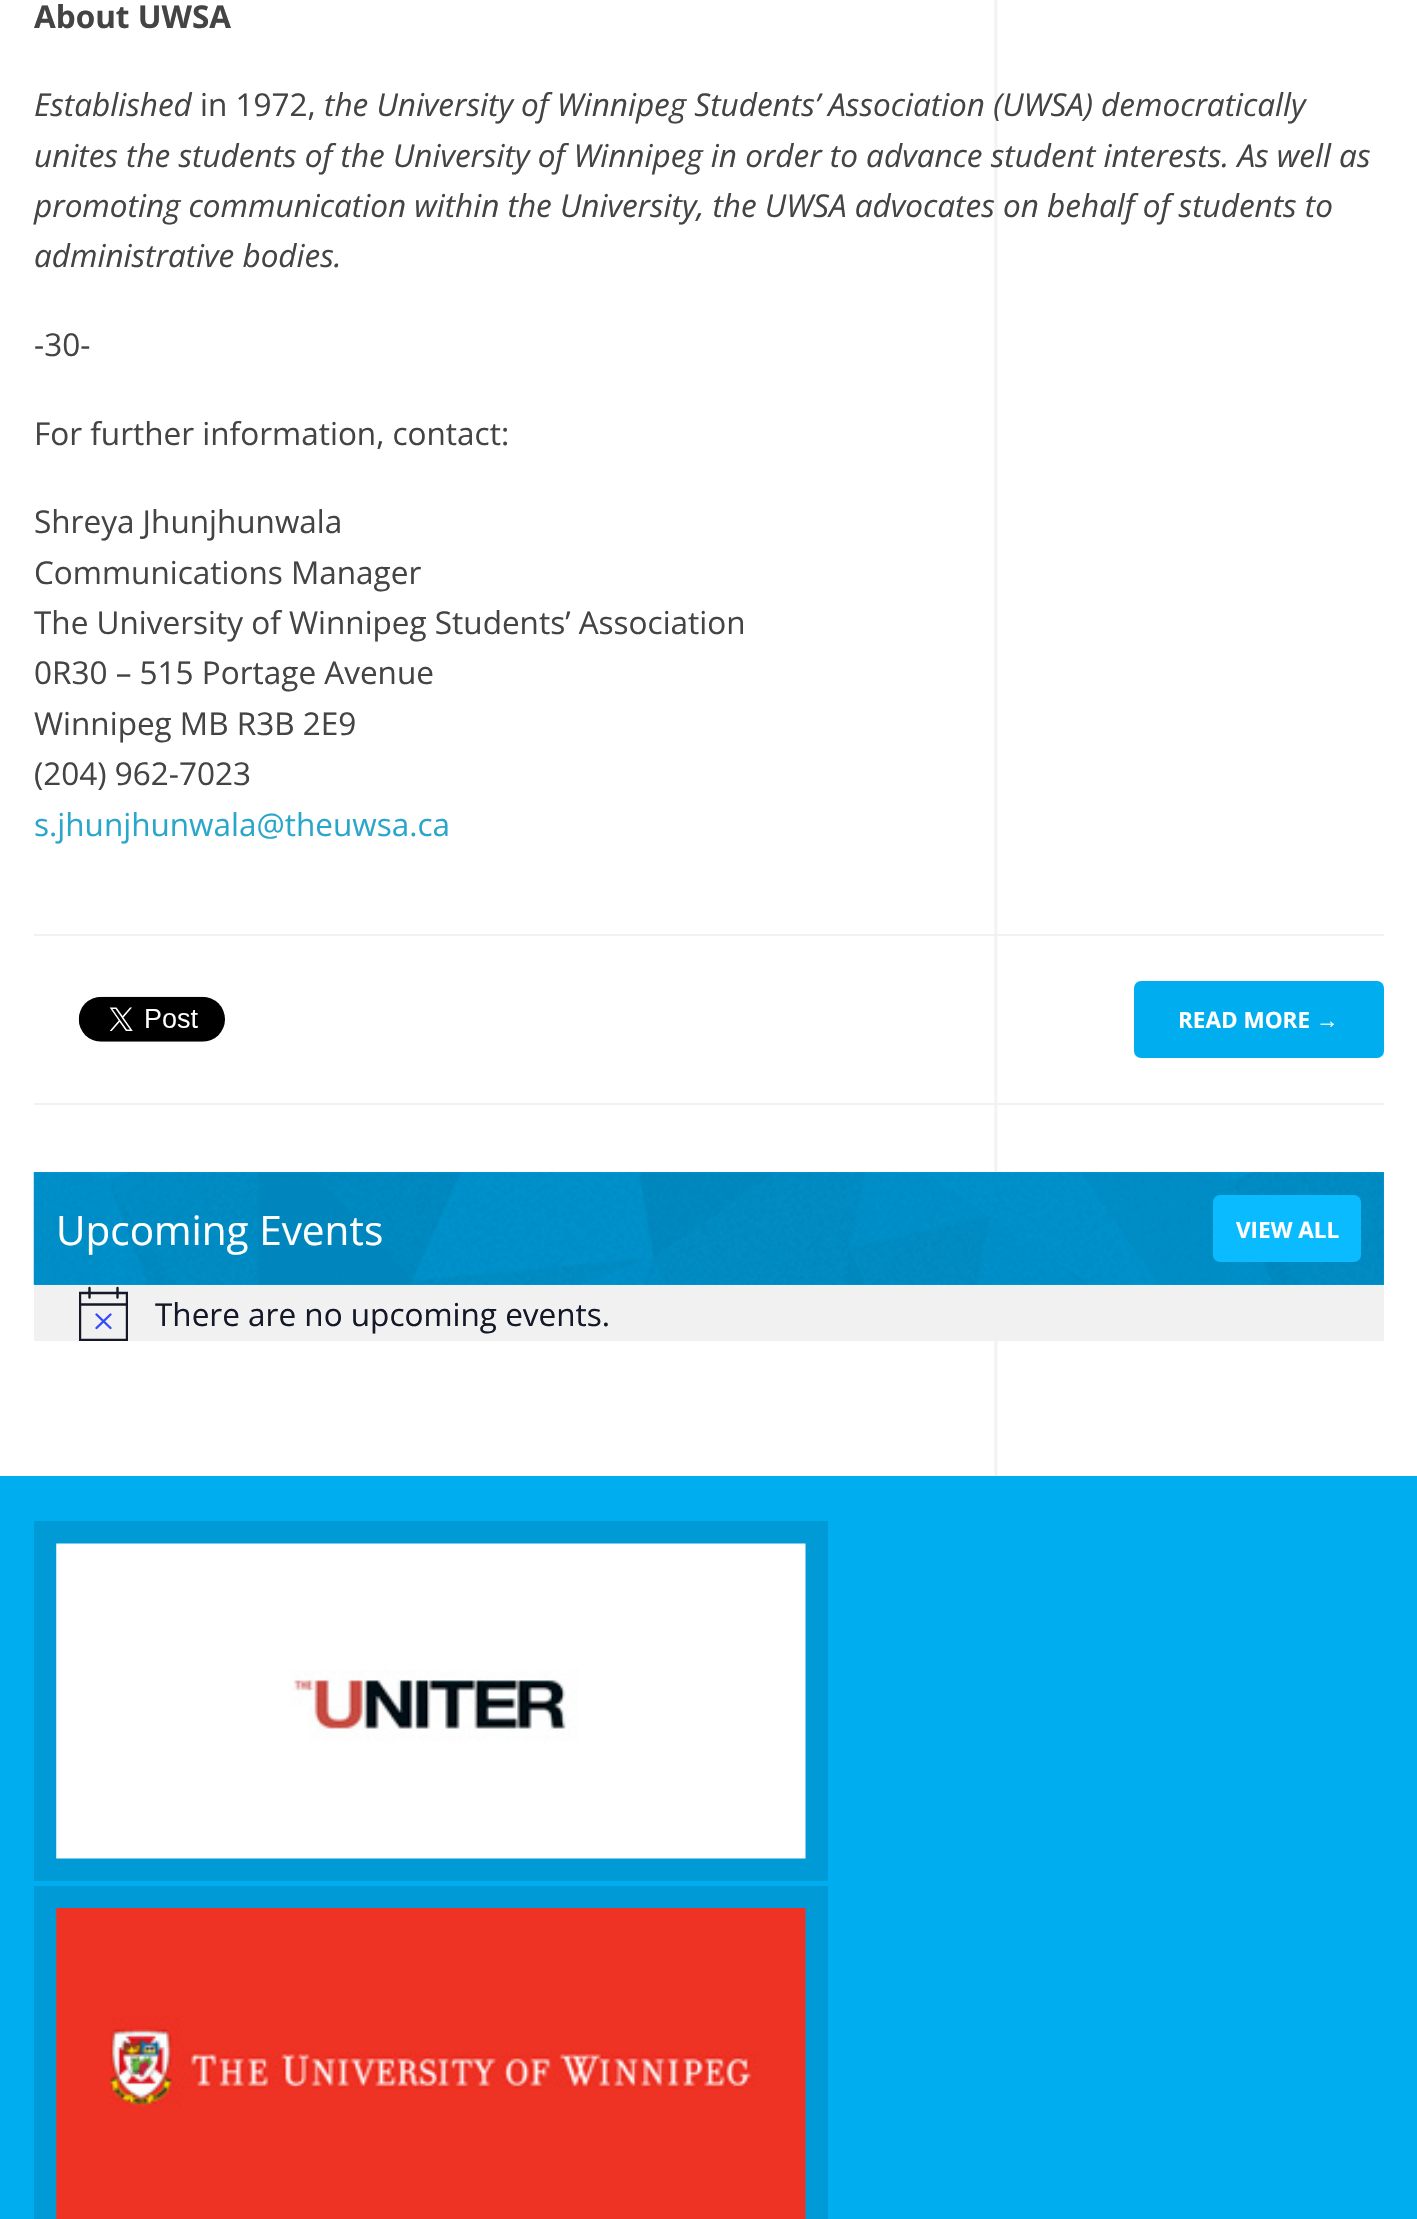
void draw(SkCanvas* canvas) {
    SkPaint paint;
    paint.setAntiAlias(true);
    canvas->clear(0xFFFFFFFF);
    canvas->drawImageRect(SkImages::DeferredFromEncodedData(SkData::MakeFromFileName("img1.png")), SkRect::MakeXYWH(994, 0, 4, 1476), SkSamplingOptions());
    paint.setColor(0xFFF1F1F1);
    canvas->drawRect(SkRect::MakeXYWH(34, 1103, 1350, 2), paint);
    SkFont font1(fontMgr->matchFamilyStyle("Open Sans", SkFontStyle::Bold()), 31.5f);
    font1.setSubpixel(true);
    paint.setColor(0xFF444444);
    canvas->drawString("About UWSA", 34, 28, font1, paint);
    SkFont font2(fontMgr->matchFamilyStyle("Open Sans", SkFontStyle::Italic()), 31.5f);
    font2.setSubpixel(true);
    canvas->drawString("Established", 34, 116, font2, paint);
    SkFont font3(fontMgr->matchFamilyStyle("Open Sans", SkFontStyle::Normal()), 31.5f);
    font3.setSubpixel(true);
    canvas->drawString("in 1972,", 200, 116, font3, paint);
    canvas->drawString("the University of Winnipeg Students’ Association (UWSA) democratically", 324, 116, font2, paint);
    canvas->drawString("unites the students of the University of Winnipeg in order to advance student interests. As well as", 34, 167, font2, paint);
    canvas->drawString("promoting communication within the University, the UWSA advocates on behalf of students to", 34, 217, font2, paint);
    canvas->drawString("administrative bodies.", 34, 267, font2, paint);
    canvas->drawString("-30-", 34, 356, font3, paint);
    canvas->drawString("For further information, contact:", 34, 445, font3, paint);
    canvas->drawString("Shreya Jhunjhunwala", 34, 533, font3, paint);
    canvas->drawString("Communications Manager", 34, 584, font3, paint);
    canvas->drawString("The University of Winnipeg Students’ Association", 34, 634, font3, paint);
    canvas->drawString("0R30 – 515 Portage Avenue", 34, 684, font3, paint);
    canvas->drawString("Winnipeg MB R3B 2E9", 34, 735, font3, paint);
    canvas->drawString("(204) 962-7023", 34, 785, font3, paint);
    paint.setColor(0xFF2BA6CB);
    canvas->drawString("s.jhunjhunwala@theuwsa.ca", 34, 836, font3, paint);
    paint.setColor(0xFFF1F1F1);
    canvas->drawRect(SkRect::MakeXYWH(34, 934, 1350, 2), paint);
    canvas->drawImageRect(SkImages::DeferredFromEncodedData(SkData::MakeFromFileName("img2.png")), SkRect::MakeXYWH(78, 996, 147, 46), SkSamplingOptions());
    paint.setColor(0xFF00AEEF);
    canvas->drawRoundRect(SkRect::MakeXYWH(1134, 981, 250, 77), 7, 7, paint);
    SkFont font4(fontMgr->matchFamilyStyle("Open Sans", SkFontStyle::Bold()), 22.5f);
    font4.setSubpixel(true);
    paint.setColor(0xFFFFFFFF);
    canvas->drawString("READ MORE", 1178, 1028, font4, paint);
    SkFont font5(fontMgr->matchFamilyStyle("Liberation Sans", SkFontStyle::Bold()), 22.5f);
    font5.setSubpixel(true);
    canvas->drawString("→", 1316, 1028, font5, paint);
    paint.setColor(0xFFF1F1F1);
    canvas->drawRect(SkRect::MakeXYWH(34, 1285, 1350, 56), paint);
    paint.setColor(0xFF00AEEF);
    canvas->drawRect(SkRect::MakeXYWH(34, 1172, 1350, 113), paint);
    canvas->drawImageRect(SkImages::DeferredFromEncodedData(SkData::MakeFromFileName("img3.png")), SkRect::MakeXYWH(33, 1172, 1351, 113), SkSamplingOptions());
    SkFont font6(fontMgr->matchFamilyStyle("Open Sans", SkFontStyle::Normal()), 40.5f);
    font6.setSubpixel(true);
    paint.setColor(0xFFFFFFFF);
    canvas->drawString("Upcoming Events", 56, 1245, font6, paint);
    paint.setColor(0xFF0ABCFF);
    canvas->drawRoundRect(SkRect::MakeXYWH(1213, 1195, 148, 67), 7, 7, paint);
    paint.setColor(0xFFFFFFFF);
    canvas->drawString("VIEW ALL", 1236, 1238, font4, paint);
    canvas->save();
    canvas->clipRect(SkRect::MakeXYWH(79, 1287, 49, 54));
    paint.setStyle(SkPaint::kStroke_Style);
    paint.setStrokeWidth(2.4f);
    paint.setColor(0xFF141827);
    canvas->drawPath(SkPathBuilder().moveTo(80, 1293).lineTo(127, 1293).lineTo(127, 1340).lineTo(80, 1340).close().detach(), paint);
    canvas->restore();
    paint.setStrokeCap(SkPaint::kRound_Cap);
    paint.setColor(0xFF334AFF);
    canvas->drawPath(SkPathBuilder().moveTo(96.5f, 1314.5f).lineTo(110.5f, 1328).moveTo(110.5f, 1314.5f).lineTo(96.5f, 1328).detach(), paint);
    paint.setColor(0xFF141827);
    canvas->drawPath(SkPathBuilder().moveTo(89.5f, 1288).lineTo(89.5f, 1297.5f).moveTo(117.5f, 1288).lineTo(117.5f, 1297.5f).detach(), paint);
    canvas->save();
    canvas->clipRect(SkRect::MakeXYWH(79, 1287, 49, 54));
    paint.setStrokeCap(SkPaint::kSquare_Cap);
    canvas->drawPath(SkPathBuilder().moveTo(80, 1304.5f).lineTo(127, 1304.5f).detach(), paint);
    canvas->restore();
    paint.setStyle(SkPaint::kFill_Style);
    canvas->drawString("There are no upcoming events.", 155, 1326, font3, paint);
    paint.setColor(0xFF00AEEF);
    canvas->drawRect(SkRect::MakeXYWH(0, 1476, 1417, 743), paint);
    paint.setStyle(SkPaint::kStroke_Style);
    paint.setStrokeWidth(23);
    paint.setStrokeCap(SkPaint::kButt_Cap);
    paint.setColor(0xFF009BD6);
    canvas->drawRect(SkRect::MakeXYWH(45.5f, 1532.5f, 771, 337), paint);
    canvas->drawImageRect(SkImages::DeferredFromEncodedData(SkData::MakeFromFileName("img4.png")), SkRect::MakeXYWH(56, 1543, 750, 316), SkSamplingOptions());
    canvas->drawRect(SkRect::MakeXYWH(45.5f, 1897.5f, 771, 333), paint);
    canvas->drawImageRect(SkImages::DeferredFromEncodedData(SkData::MakeFromFileName("img5.png")), SkRect::MakeXYWH(56, 1908, 750, 311), SkSamplingOptions());
}
